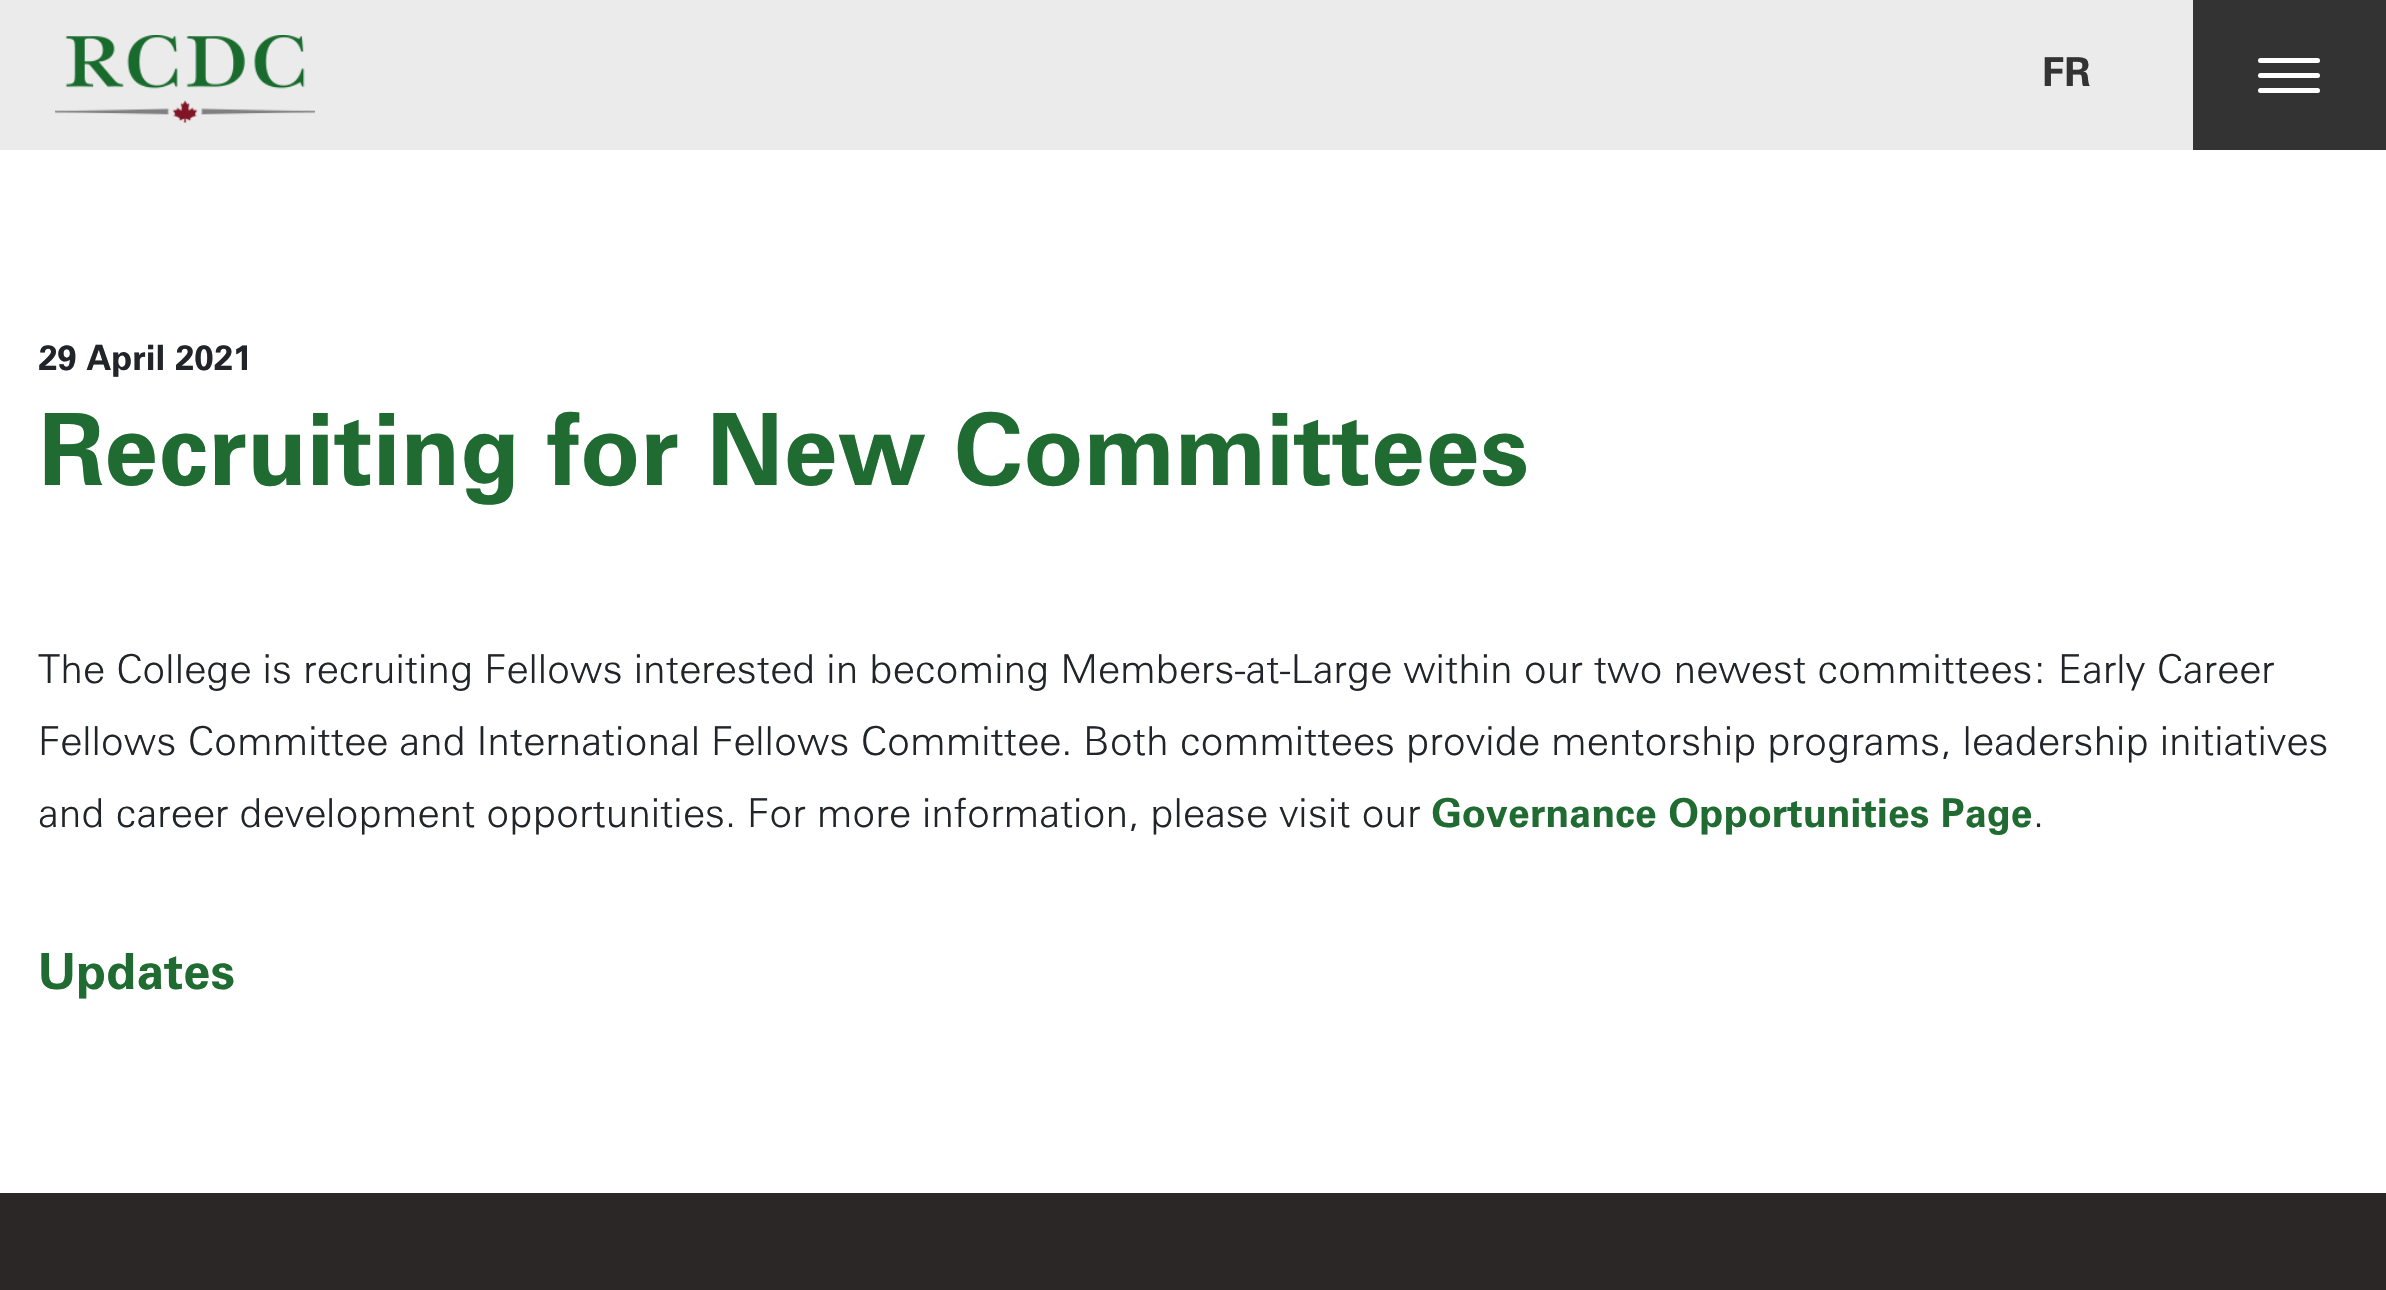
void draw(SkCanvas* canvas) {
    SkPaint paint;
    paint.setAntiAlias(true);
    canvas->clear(0xFFFFFFFF);
    paint.setColor(0xFFEBEBEB);
    canvas->drawRect(SkRect::MakeXYWH(0, 0, 2193, 150), paint);
    canvas->drawImageRect(SkImages::DeferredFromEncodedData(SkData::MakeFromFileName("img1.png")), SkRect::MakeXYWH(55, 35, 260, 88), SkSamplingOptions());
    SkFont font1(fontMgr->matchFamilyStyle("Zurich", SkFontStyle::Bold()), 40);
    font1.setSubpixel(true);
    paint.setColor(0xFF333333);
    canvas->drawString("FR", 2042, 86, font1, paint);
    canvas->drawRect(SkRect::MakeXYWH(2193, 0, 193, 150), paint);
    paint.setColor(0xFFFFFFFF);
    canvas->drawRoundRect(SkRect::MakeXYWH(2258, 58, 62, 5), 2.5f, 2.5f, paint);
    canvas->drawRoundRect(SkRect::MakeXYWH(2258, 73, 62, 5), 2.5f, 2.5f, paint);
    canvas->drawRoundRect(SkRect::MakeXYWH(2258, 88, 62, 5), 2.5f, 2.5f, paint);
    SkFont font2(fontMgr->matchFamilyStyle("Zurich", SkFontStyle::Bold()), 35);
    font2.setSubpixel(true);
    paint.setColor(0xFF212529);
    canvas->drawString("29 April 2021", 38, 370, font2, paint);
    SkFont font3(fontMgr->matchFamilyStyle("Zurich", SkFontStyle::Bold()), 100);
    font3.setSubpixel(true);
    paint.setColor(0xFF1F6B31);
    canvas->drawString("Recruiting for New Committees", 38, 485, font3, paint);
    SkFont font4(fontMgr->matchFamilyStyle("Zurich", SkFontStyle(300, SkFontStyle::kNormal_Width, SkFontStyle::kUpright_Slant)), 40);
    font4.setSubpixel(true);
    paint.setColor(0xFF212529);
    canvas->drawString("The College is recruiting Fellows interested in becoming Members-at-Large within our two newest committees: Early Career", 38, 683, font4, paint);
    canvas->drawString("Fellows Committee and International Fellows Committee. Both committees provide mentorship programs, leadership initiatives", 38, 755, font4, paint);
    canvas->drawString("and career development opportunities. For more information, please visit our", 38, 827, font4, paint);
    paint.setColor(0xFF1F6B31);
    canvas->drawString("Governance Opportunities Page", 1431, 827, font1, paint);
    paint.setColor(0xFF212529);
    canvas->drawString(".", 2033, 827, font4, paint);
    SkFont font5(fontMgr->matchFamilyStyle("Zurich", SkFontStyle::Bold()), 50);
    font5.setSubpixel(true);
    paint.setColor(0xFF1F6B31);
    canvas->drawString("Updates", 38, 989, font5, paint);
    paint.setColor(0xFF2B2727);
    canvas->drawRect(SkRect::MakeXYWH(0, 1193, 2386, 97), paint);
}
